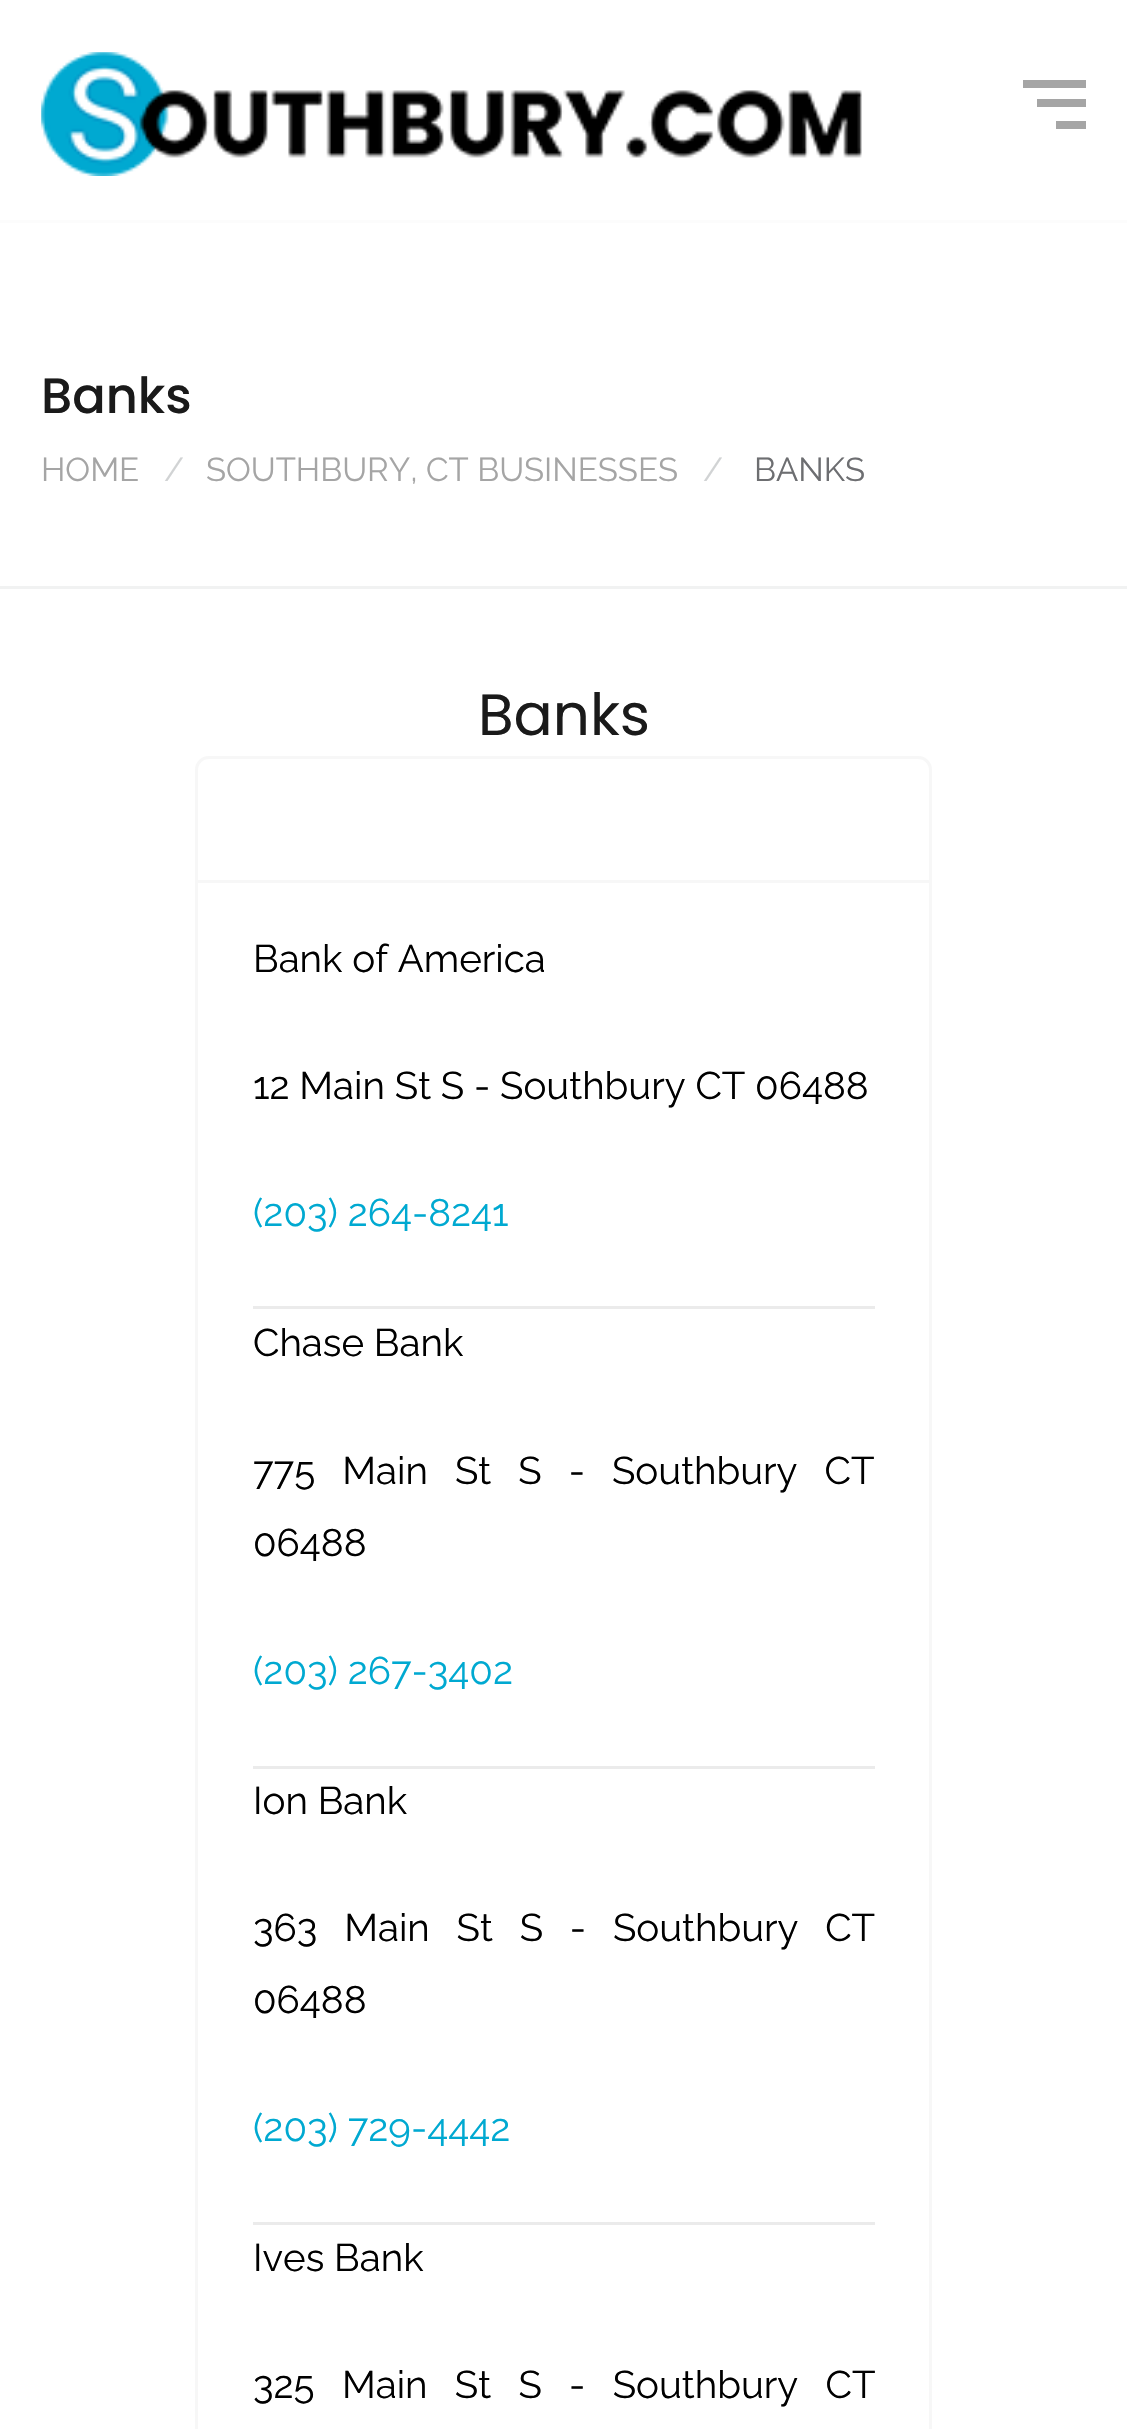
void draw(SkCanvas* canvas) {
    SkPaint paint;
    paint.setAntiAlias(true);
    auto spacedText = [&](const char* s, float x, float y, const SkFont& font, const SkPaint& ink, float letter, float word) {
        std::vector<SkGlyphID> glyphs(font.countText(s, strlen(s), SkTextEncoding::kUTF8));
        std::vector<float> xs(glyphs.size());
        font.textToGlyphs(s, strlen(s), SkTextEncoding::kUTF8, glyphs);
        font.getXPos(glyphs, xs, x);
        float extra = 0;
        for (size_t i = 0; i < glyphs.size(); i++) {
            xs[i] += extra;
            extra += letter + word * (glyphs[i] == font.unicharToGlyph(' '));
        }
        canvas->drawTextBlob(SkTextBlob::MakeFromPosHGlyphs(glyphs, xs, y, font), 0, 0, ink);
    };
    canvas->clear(0xFFFFFFFF);
    paint.setColor(0xFFFCFCFC);
    canvas->drawRect(SkRect::MakeXYWH(0, 220, 1127, 3), paint);
    canvas->drawImageRect(SkImages::DeferredFromEncodedData(SkData::MakeFromFileName("img1.png")), SkRect::MakeXYWH(41, 52, 821, 124), SkSamplingOptions());
    paint.setColor(0xFFA5A5A5);
    canvas->drawRect(SkRect::MakeXYWH(1037, 99, 49, 8), paint);
    canvas->drawRect(SkRect::MakeXYWH(1023, 80, 63, 8), paint);
    canvas->drawRect(SkRect::MakeXYWH(1056, 121, 30, 8), paint);
    paint.setColor(0xFFF1F2F2);
    canvas->drawRect(SkRect::MakeXYWH(0, 586, 1127, 3), paint);
    SkFont font1(fontMgr->matchFamilyStyle("Poppins", SkFontStyle(500, SkFontStyle::kNormal_Width, SkFontStyle::kUpright_Slant)), 49.5f);
    font1.setSubpixel(true);
    paint.setColor(0xFF1A1A1A);
    canvas->drawString("Banks", 41, 413, font1, paint);
    SkFont font2(fontMgr->matchFamilyStyle("Raleway", SkFontStyle::Normal()), 33);
    font2.setSubpixel(true);
    paint.setColor(0xFFA5A5A5);
    canvas->drawString("HOME", 41, 481, font2, paint);
    paint.setColor(0xFFD1D3D4);
    canvas->drawString("/", 164, 481, font2, paint);
    paint.setColor(0xFFA5A5A5);
    canvas->drawString("SOUTHBURY, CT BUSINESSES", 206, 481, font2, paint);
    paint.setColor(0xFFD1D3D4);
    canvas->drawString("/", 703, 481, font2, paint);
    paint.setColor(0xFF6D6E71);
    canvas->drawString("BANKS", 754, 481, font2, paint);
    SkFont font3(fontMgr->matchFamilyStyle("Poppins", SkFontStyle::Normal()), 58);
    font3.setSubpixel(true);
    paint.setColor(0xFF1A1A1A);
    canvas->drawString("Banks", 478, 735, font3, paint);
    paint.setStyle(SkPaint::kStroke_Style);
    paint.setStrokeWidth(3);
    paint.setColor(0xFFF7F7F7);
    canvas->drawPath(SkPathBuilder().moveTo(209, 757.5f).lineTo(918, 757.5f).cubicTo(925, 757.5f, 930.5f, 763, 930.5f, 770).lineTo(930.5f, 881.5f).lineTo(196.5f, 881.5f).lineTo(196.5f, 770).cubicTo(196.5f, 763, 202, 757.5f, 209, 757.5f).close().detach(), paint);
    canvas->drawRect(SkRect::MakeXYWH(196.5f, 881.5f, 734, 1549), paint);
    SkFont font4(fontMgr->matchFamilyStyle("Raleway", SkFontStyle::Normal()), 38.5f);
    font4.setSubpixel(true);
    paint.setStyle(SkPaint::kFill_Style);
    paint.setColor(0xFF000000);
    canvas->drawString("Bank of America", 253, 972, font4, paint);
    canvas->drawString("12 Main St S - Southbury CT 06488", 253, 1099, font4, paint);
    paint.setColor(0xFF00A9D1);
    canvas->drawString("(203) 264-8241", 253, 1226, font4, paint);
    paint.setColor(0xFFEBEBEB);
    canvas->drawRect(SkRect::MakeXYWH(253, 1306, 622, 3), paint);
    paint.setColor(0xFF000000);
    canvas->drawString("Chase Bank", 253, 1356, font4, paint);
    spacedText("775 Main St S - Southbury CT", 253, 1484, font4, paint, 0, 17.25f);
    canvas->drawString("06488", 253, 1556, font4, paint);
    paint.setColor(0xFF00A9D1);
    canvas->drawString("(203) 267-3402", 253, 1684, font4, paint);
    paint.setColor(0xFFEBEBEB);
    canvas->drawRect(SkRect::MakeXYWH(253, 1766, 622, 3), paint);
    paint.setColor(0xFF000000);
    canvas->drawString("Ion Bank", 253, 1814, font4, paint);
    spacedText("363 Main St S - Southbury CT", 253, 1941, font4, paint, 0, 17);
    canvas->drawString("06488", 253, 2013, font4, paint);
    paint.setColor(0xFF00A9D1);
    canvas->drawString("(203) 729-4442", 253, 2141, font4, paint);
    paint.setColor(0xFFEBEBEB);
    canvas->drawRect(SkRect::MakeXYWH(253, 2222, 622, 3), paint);
    paint.setColor(0xFF000000);
    canvas->drawString("Ives Bank", 253, 2271, font4, paint);
    spacedText("325 Main St S - Southbury CT", 253, 2398, font4, paint, 0, 17.5f);
}
